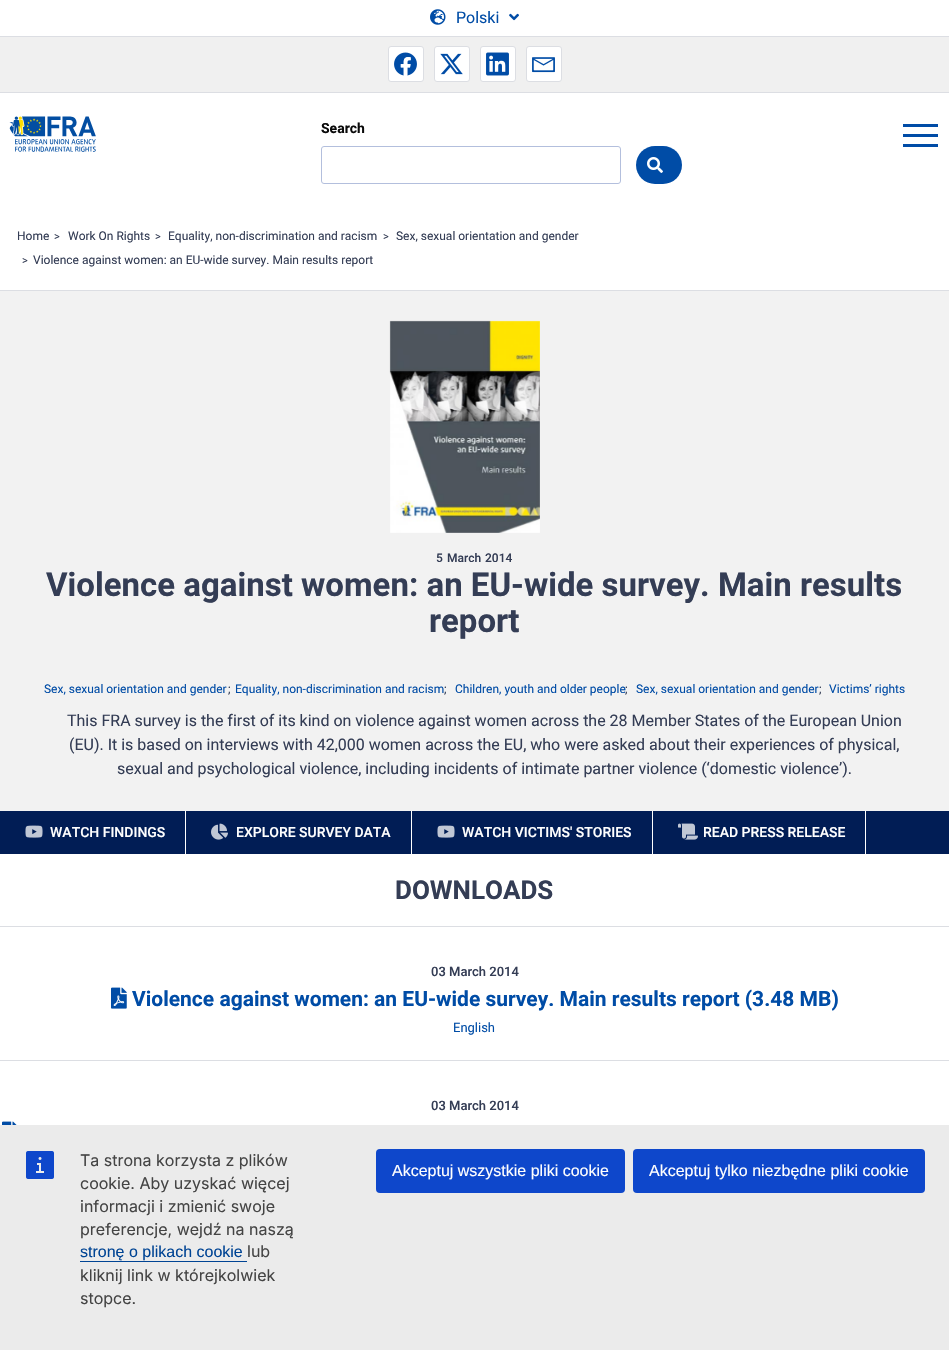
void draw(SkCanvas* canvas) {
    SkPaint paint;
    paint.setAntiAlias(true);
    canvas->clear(0xFFFFFFFF);
    paint.setColor(0xFFDCDEE3);
    canvas->drawRect(SkRect::MakeXYWH(0, 36, 949, 1), paint);
    canvas->drawImageRect(SkImages::DeferredFromEncodedData(SkData::MakeFromFileName("img1.png")), SkRect::MakeXYWH(430, 9, 16, 16), SkSamplingOptions());
    SkFont font1(fontMgr->matchFamilyStyle("Roboto", SkFontStyle::Normal()), 16);
    font1.setSubpixel(true);
    paint.setColor(0xFF004CA6);
    canvas->drawString("Polski", 456, 23, font1, paint);
    canvas->drawImageRect(SkImages::DeferredFromEncodedData(SkData::MakeFromFileName("img2.png")), SkRect::MakeXYWH(509, 13, 10, 8), SkSamplingOptions());
    paint.setColor(0xFFF0F0F0);
    canvas->drawRect(SkRect::MakeXYWH(0, 37, 949, 55), paint);
    paint.setColor(0xFFDCDEE3);
    canvas->drawRect(SkRect::MakeXYWH(0, 92, 949, 1), paint);
    paint.setColor(0xFFFFFFFF);
    canvas->drawRoundRect(SkRect::MakeXYWH(388.5f, 46.5f, 35, 35), 2.5f, 2.5f, paint);
    paint.setStyle(SkPaint::kStroke_Style);
    paint.setStrokeWidth(1);
    paint.setColor(0xFFDCDEE3);
    canvas->drawRoundRect(SkRect::MakeXYWH(388.5f, 46.5f, 35, 35), 2.5f, 2.5f, paint);
    canvas->drawImageRect(SkImages::DeferredFromEncodedData(SkData::MakeFromFileName("img3.png")), SkRect::MakeXYWH(394, 52, 23, 24), SkSamplingOptions());
    paint.setStyle(SkPaint::kFill_Style);
    paint.setColor(0xFFFFFFFF);
    canvas->drawRoundRect(SkRect::MakeXYWH(434.5f, 46.5f, 35, 35), 2.5f, 2.5f, paint);
    paint.setStyle(SkPaint::kStroke_Style);
    paint.setColor(0xFFDCDEE3);
    canvas->drawRoundRect(SkRect::MakeXYWH(434.5f, 46.5f, 35, 35), 2.5f, 2.5f, paint);
    canvas->drawImageRect(SkImages::DeferredFromEncodedData(SkData::MakeFromFileName("img4.png")), SkRect::MakeXYWH(440, 53, 23, 22), SkSamplingOptions());
    paint.setStyle(SkPaint::kFill_Style);
    paint.setColor(0xFFFFFFFF);
    canvas->drawRoundRect(SkRect::MakeXYWH(480.5f, 46.5f, 35, 35), 2.5f, 2.5f, paint);
    paint.setStyle(SkPaint::kStroke_Style);
    paint.setColor(0xFFDCDEE3);
    canvas->drawRoundRect(SkRect::MakeXYWH(480.5f, 46.5f, 35, 35), 2.5f, 2.5f, paint);
    canvas->drawImageRect(SkImages::DeferredFromEncodedData(SkData::MakeFromFileName("img5.png")), SkRect::MakeXYWH(486, 52, 23, 24), SkSamplingOptions());
    paint.setStyle(SkPaint::kFill_Style);
    paint.setColor(0xFFFFFFFF);
    canvas->drawRoundRect(SkRect::MakeXYWH(526.5f, 46.5f, 35, 35), 2.5f, 2.5f, paint);
    paint.setStyle(SkPaint::kStroke_Style);
    paint.setColor(0xFFDCDEE3);
    canvas->drawRoundRect(SkRect::MakeXYWH(526.5f, 46.5f, 35, 35), 2.5f, 2.5f, paint);
    canvas->drawImageRect(SkImages::DeferredFromEncodedData(SkData::MakeFromFileName("img6.png")), SkRect::MakeXYWH(532, 57, 23, 16), SkSamplingOptions());
    canvas->drawImageRect(SkImages::DeferredFromEncodedData(SkData::MakeFromFileName("img7.png")), SkRect::MakeXYWH(9, 116, 87, 36), SkSamplingOptions());
    SkFont font2(fontMgr->matchFamilyStyle("Roboto", SkFontStyle::Bold()), 14);
    font2.setSubpixel(true);
    paint.setStyle(SkPaint::kFill_Style);
    paint.setColor(0xFF0A0A0A);
    canvas->drawString("Search", 321, 133, font2, paint);
    paint.setStyle(SkPaint::kStroke_Style);
    paint.setColor(0xFFB3BFDD);
    canvas->drawRoundRect(SkRect::MakeXYWH(321.5f, 146.5f, 299, 37), 2.5f, 2.5f, paint);
    paint.setStyle(SkPaint::kFill_Style);
    paint.setColor(0xFF004CA6);
    canvas->drawRoundRect(SkRect::MakeXYWH(636, 146, 46, 38), 19, 19, paint);
    canvas->drawImageRect(SkImages::DeferredFromEncodedData(SkData::MakeFromFileName("img8.png")), SkRect::MakeXYWH(647, 157, 16, 16), SkSamplingOptions());
    canvas->drawRect(SkRect::MakeXYWH(903, 144, 35, 3), paint);
    canvas->drawRect(SkRect::MakeXYWH(903, 134, 35, 3), paint);
    canvas->drawRect(SkRect::MakeXYWH(903, 124, 35, 3), paint);
    paint.setColor(0xFFDCDEE3);
    canvas->drawRect(SkRect::MakeXYWH(0, 290, 949, 1), paint);
    SkFont font3(fontMgr->matchFamilyStyle("Roboto", SkFontStyle::Normal()), 12);
    font3.setSubpixel(true);
    paint.setColor(0xFF343D55);
    canvas->drawString("Home", 17, 240, font3, paint);
    SkFont font4(fontMgr->matchFamilyStyle("Roboto", SkFontStyle::Normal()), 11);
    font4.setSubpixel(true);
    canvas->drawString(">", 54, 240, font4, paint);
    canvas->drawString("Work On Rights", 68, 240, font3, paint);
    canvas->drawString(">", 155, 240, font4, paint);
    canvas->drawString("Equality, non-discrimination and racism", 168, 240, font3, paint);
    canvas->drawString(">", 383, 240, font4, paint);
    canvas->drawString("Sex, sexual orientation and gender", 396, 240, font3, paint);
    canvas->drawString(">", 22, 264, font4, paint);
    canvas->drawString("Violence against women: an EU-wide survey. Main results report", 33, 264, font3, paint);
    paint.setColor(0xFFF2F2F2);
    canvas->drawRect(SkRect::MakeXYWH(0, 291, 949, 520), paint);
    canvas->drawImageRect(SkImages::DeferredFromEncodedData(SkData::MakeFromFileName("img9.png")), SkRect::MakeXYWH(389, 320, 151, 213), SkSamplingOptions());
    SkFont font5(fontMgr->matchFamilyStyle("Roboto", SkFontStyle(500, SkFontStyle::kNormal_Width, SkFontStyle::kUpright_Slant)), 12);
    font5.setSubpixel(true);
    paint.setColor(0xFF343D55);
    canvas->drawString("5", 436, 562, font5, paint);
    canvas->drawString("March", 447, 562, font5, paint);
    canvas->drawString("2014", 485, 562, font5, paint);
    SkFont font6(fontMgr->matchFamilyStyle("Roboto", SkFontStyle::Bold()), 33);
    font6.setSubpixel(true);
    canvas->drawString("Violence against women: an EU-wide survey. Main results", 46, 596, font6, paint);
    canvas->drawString("report", 429, 632, font6, paint);
    paint.setColor(0xFF004CA6);
    canvas->drawString("Sex, sexual orientation and gender", 44, 693, font3, paint);
    paint.setColor(0xFF343D55);
    canvas->drawString(";", 228, 693, font3, paint);
    paint.setColor(0xFF004CA6);
    canvas->drawString("Equality, non-discrimination and racism", 235, 693, font3, paint);
    paint.setColor(0xFF343D55);
    canvas->drawString(";", 444, 693, font3, paint);
    paint.setColor(0xFF004CA6);
    canvas->drawString("Children, youth and older people", 455, 693, font3, paint);
    paint.setColor(0xFF343D55);
    canvas->drawString(";", 625, 693, font3, paint);
    paint.setColor(0xFF004CA6);
    canvas->drawString("Sex, sexual orientation and gender", 636, 693, font3, paint);
    paint.setColor(0xFF343D55);
    canvas->drawString(";", 819, 693, font3, paint);
    paint.setColor(0xFF004CA6);
    canvas->drawString("Victims’ rights", 829, 693, font3, paint);
    paint.setColor(0xFF343D55);
    canvas->drawString("This FRA survey is the first of its kind on violence against women across the 28 Member States of the European Union", 67, 726, font1, paint);
    canvas->drawString("(EU). It is based on interviews with 42,000 women across the EU, who were asked about their experiences of physical,", 69, 750, font1, paint);
    canvas->drawString("sexual and psychological violence, including incidents of intimate partner violence (‘domestic violence’).", 117, 774, font1, paint);
    paint.setColor(0xFF011D55);
    canvas->drawRect(SkRect::MakeXYWH(0, 811, 949, 43), paint);
    paint.setColor(0xFFFFFFFF);
    canvas->drawRect(SkRect::MakeXYWH(185, 811, 1, 43), paint);
    canvas->drawImageRect(SkImages::DeferredFromEncodedData(SkData::MakeFromFileName("img10.png")), SkRect::MakeXYWH(25, 825, 18, 13), SkSamplingOptions());
    SkFont font7(fontMgr->matchFamilyStyle("Roboto", SkFontStyle(500, SkFontStyle::kNormal_Width, SkFontStyle::kUpright_Slant)), 14);
    font7.setSubpixel(true);
    canvas->drawString("WATCH FINDINGS", 50, 837, font7, paint);
    canvas->drawRect(SkRect::MakeXYWH(411, 811, 1, 43), paint);
    canvas->drawImageRect(SkImages::DeferredFromEncodedData(SkData::MakeFromFileName("img11.png")), SkRect::MakeXYWH(211, 823, 17, 17), SkSamplingOptions());
    canvas->drawString("EXPLORE SURVEY DATA", 236, 837, font7, paint);
    canvas->drawRect(SkRect::MakeXYWH(652, 811, 1, 43), paint);
    canvas->drawImageRect(SkImages::DeferredFromEncodedData(SkData::MakeFromFileName("img10.png")), SkRect::MakeXYWH(437, 825, 18, 13), SkSamplingOptions());
    canvas->drawString("WATCH VICTIMS' STORIES", 462, 837, font7, paint);
    canvas->drawRect(SkRect::MakeXYWH(865, 811, 1, 43), paint);
    canvas->drawImageRect(SkImages::DeferredFromEncodedData(SkData::MakeFromFileName("img12.png")), SkRect::MakeXYWH(678, 823, 20, 17), SkSamplingOptions());
    canvas->drawString("READ PRESS RELEASE", 703, 837, font7, paint);
    SkFont font8(fontMgr->matchFamilyStyle("Roboto", SkFontStyle::Bold()), 26);
    font8.setSubpixel(true);
    paint.setColor(0xFF343D55);
    canvas->drawString("DOWNLOADS", 395, 899, font8, paint);
    paint.setColor(0xFFDCDEE3);
    canvas->drawRect(SkRect::MakeXYWH(0, 926, 949, 1), paint);
    SkFont font9(fontMgr->matchFamilyStyle("Roboto", SkFontStyle(500, SkFontStyle::kNormal_Width, SkFontStyle::kUpright_Slant)), 13);
    font9.setSubpixel(true);
    paint.setColor(0xFF343D55);
    canvas->drawString("03 March 2014", 431, 976, font9, paint);
    canvas->drawImageRect(SkImages::DeferredFromEncodedData(SkData::MakeFromFileName("img13.png")), SkRect::MakeXYWH(111, 987, 16, 22), SkSamplingOptions());
    SkFont font10(fontMgr->matchFamilyStyle("Roboto", SkFontStyle::Bold()), 21);
    font10.setSubpixel(true);
    paint.setColor(0xFF004CA6);
    canvas->drawString("Violence against women: an EU-wide survey. Main results report (3.48 MB)", 132, 1006, font10, paint);
    SkFont font11(fontMgr->matchFamilyStyle("Roboto", SkFontStyle::Normal()), 13);
    font11.setSubpixel(true);
    canvas->drawString("English", 453, 1032, font11, paint);
    paint.setColor(0xFFDCDEE3);
    canvas->drawRect(SkRect::MakeXYWH(0, 1060, 949, 1), paint);
    paint.setColor(0xFF343D55);
    canvas->drawString("03 March 2014", 431, 1110, font9, paint);
    canvas->drawImageRect(SkImages::DeferredFromEncodedData(SkData::MakeFromFileName("img14.png")), SkRect::MakeXYWH(2, 1121, 15, 4), SkSamplingOptions());
    paint.setColor(0xFFEBEBEB);
    canvas->drawRect(SkRect::MakeXYWH(0, 1125, 949, 225), paint);
    canvas->drawImageRect(SkImages::DeferredFromEncodedData(SkData::MakeFromFileName("img15.png")), SkRect::MakeXYWH(26, 1151, 28, 28), SkSamplingOptions());
    SkFont font12(fontMgr->matchFamilyStyle("Inter", SkFontStyle::Normal()), 16);
    font12.setSubpixel(true);
    paint.setColor(0xFF444444);
    canvas->drawString("Ta strona korzysta z plików", 80, 1166, font12, paint);
    canvas->drawString("cookie. Aby uzyskać więcej", 80, 1189, font12, paint);
    canvas->drawString("informacji i zmienić swoje", 80, 1212, font12, paint);
    canvas->drawString("preferencje, wejdź na naszą", 80, 1235, font12, paint);
    SkFont font13(fontMgr->matchFamilyStyle("Liberation Sans", SkFontStyle::Normal()), 16);
    font13.setSubpixel(true);
    paint.setColor(0xFF004494);
    canvas->drawString("stronę o plikach cookie", 80, 1257, font13, paint);
    canvas->drawRect(SkRect::MakeXYWH(80, 1261, 167, 1), paint);
    paint.setColor(0xFF444444);
    canvas->drawString("lub", 247, 1257, font12, paint);
    canvas->drawString("kliknij link w którejkolwiek", 80, 1281, font12, paint);
    canvas->drawString("stopce.", 80, 1304, font12, paint);
    paint.setColor(0xFF0E47CB);
    canvas->drawRoundRect(SkRect::MakeXYWH(376, 1149, 249, 44), 4, 4, paint);
    paint.setColor(0xFFFFFFFF);
    canvas->drawString("Akceptuj wszystkie pliki cookie", 392, 1176, font13, paint);
    paint.setColor(0xFF0E47CB);
    canvas->drawRoundRect(SkRect::MakeXYWH(633, 1149, 292, 44), 4, 4, paint);
    paint.setColor(0xFFFFFFFF);
    canvas->drawString("Akceptuj tylko niezbędne pliki cookie", 649, 1176, font13, paint);
}
